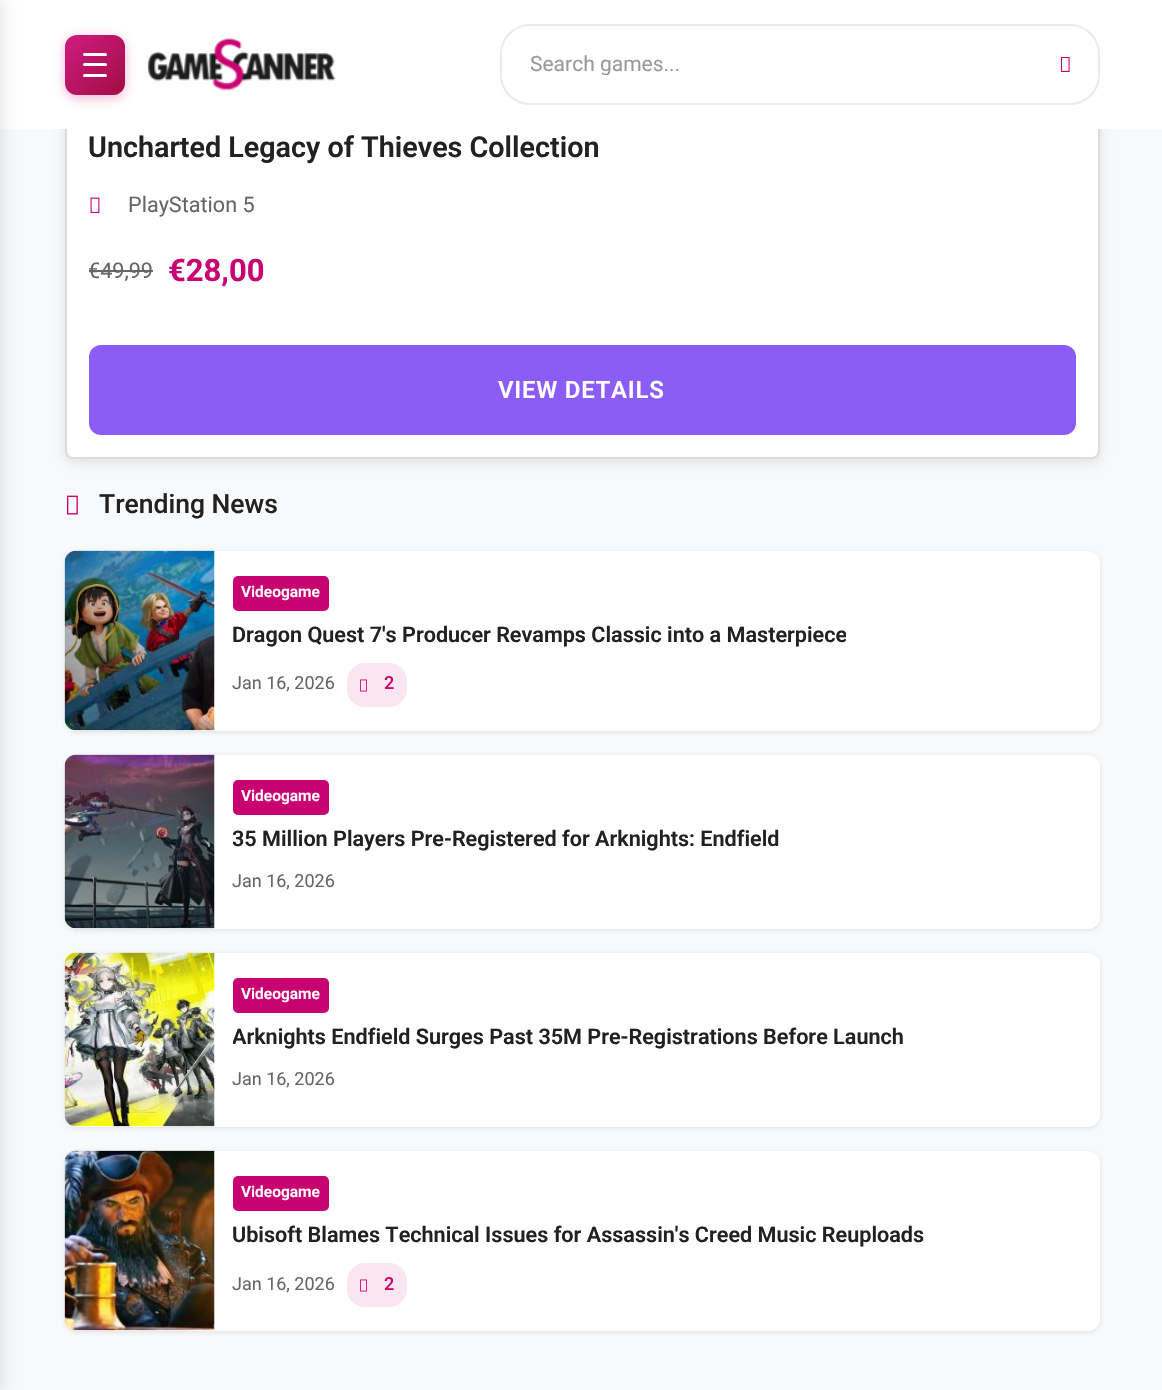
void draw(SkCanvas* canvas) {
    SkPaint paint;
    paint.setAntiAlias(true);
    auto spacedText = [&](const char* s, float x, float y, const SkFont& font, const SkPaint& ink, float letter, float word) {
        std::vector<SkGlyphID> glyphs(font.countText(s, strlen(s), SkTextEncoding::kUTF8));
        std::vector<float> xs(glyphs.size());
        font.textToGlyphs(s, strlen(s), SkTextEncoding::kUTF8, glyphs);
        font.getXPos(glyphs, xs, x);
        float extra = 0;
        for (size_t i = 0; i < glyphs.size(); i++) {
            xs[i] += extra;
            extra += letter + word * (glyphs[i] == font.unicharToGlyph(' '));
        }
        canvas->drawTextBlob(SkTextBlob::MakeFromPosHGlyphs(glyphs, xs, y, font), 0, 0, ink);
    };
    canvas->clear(0xFFF8F9FA);
    paint.setColor(0x1A000000);
    paint.setMaskFilter(SkMaskFilter::MakeBlur(kNormal_SkBlurStyle, 6));
    canvas->drawRoundRect(SkRect::MakeXYWH(65, -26, 1035, 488), 8, 8, paint);
    paint.setMaskFilter(nullptr);
    paint.setColor(0xFFFFFFFF);
    canvas->drawRoundRect(SkRect::MakeXYWH(66, -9, 1033, 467), 7, 7, paint);
    paint.setStyle(SkPaint::kStroke_Style);
    paint.setStrokeWidth(2);
    paint.setColor(0xFFDDDDDD);
    canvas->drawRoundRect(SkRect::MakeXYWH(66, -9, 1033, 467), 7, 7, paint);
    paint.setStyle(SkPaint::kFill_Style);
    paint.setColor(0xFFFFFFFF);
    canvas->drawRect(SkRect::MakeXYWH(0, 0, 1162, 129), paint);
    paint.setColor(0x1A000000);
    paint.setMaskFilter(SkMaskFilter::MakeBlur(kNormal_SkBlurStyle, 7.5f));
    canvas->drawRect(SkRect::MakeXYWH(-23, 0, 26, 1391), paint);
    paint.setMaskFilter(nullptr);
    paint.setColor(0x4DC90272);
    paint.setMaskFilter(SkMaskFilter::MakeBlur(kNormal_SkBlurStyle, 6));
    canvas->drawRoundRect(SkRect::MakeXYWH(65, 38, 60, 60), 12, 12, paint);
    paint.setMaskFilter(nullptr);
    {
        const SkColor colors[] = {0xFFC90272, 0xFF9C0038};
        const float stops[] = {0, 1};
        const SkPoint ends[] = {{65, 35}, {125, 95}};
        paint.setShader(SkGradientShader::MakeLinear(ends, colors, stops, 2, SkTileMode::kClamp));
        paint.setAlpha(255);
    }
    canvas->drawRoundRect(SkRect::MakeXYWH(65, 35, 60, 60), 12, 12, paint);
    {
        const SkColor colors[] = {0x1AFFFFFF, 0x0DFFFFFF};
        const float stops[] = {0, 1};
        const SkPoint ends[] = {{65, 35}, {125, 95}};
        paint.setShader(SkGradientShader::MakeLinear(ends, colors, stops, 2, SkTileMode::kClamp));
        paint.setAlpha(255);
    }
    canvas->drawRoundRect(SkRect::MakeXYWH(65, 35, 60, 60), 12, 12, paint);
    paint.setShader(nullptr);
    paint.setColor(0xFFFFFFFF);
    canvas->drawRoundRect(SkRect::MakeXYWH(83, 53, 24, 3), 1.5f, 1.5f, paint);
    canvas->drawRoundRect(SkRect::MakeXYWH(83, 63, 24, 3), 1.5f, 1.5f, paint);
    canvas->drawRoundRect(SkRect::MakeXYWH(83, 74, 24, 3), 1.5f, 1.5f, paint);
    canvas->drawImageRect(SkImages::DeferredFromEncodedData(SkData::MakeFromFileName("img1.png")), SkRect::MakeXYWH(147, 38, 189, 53), SkSamplingOptions());
    paint.setStyle(SkPaint::kStroke_Style);
    paint.setColor(0xFFE9ECEF);
    canvas->drawRoundRect(SkRect::MakeXYWH(501, 25, 598, 79), 29, 29, paint);
    canvas->save();
    canvas->clipRect(SkRect::MakeXYWH(531, 51, 507, 24));
    SkFont font1(fontMgr->matchFamilyStyle("Roboto", SkFontStyle::Normal()), 21);
    font1.setSubpixel(true);
    paint.setStyle(SkPaint::kFill_Style);
    paint.setColor(0xFF999999);
    canvas->drawString("Search games...", 530, 71, font1, paint);
    canvas->restore();
    canvas->drawImageRect(SkImages::DeferredFromEncodedData(SkData::MakeFromFileName("img2.png")), SkRect::MakeXYWH(1060, 57, 10, 15), SkSamplingOptions());
    SkFont font2(fontMgr->matchFamilyStyle("Roboto", SkFontStyle(600, SkFontStyle::kNormal_Width, SkFontStyle::kUpright_Slant)), 28.75f);
    font2.setSubpixel(true);
    paint.setColor(0xFF212121);
    canvas->drawString("Uncharted Legacy of Thieves Collection", 88, 157, font2, paint);
    canvas->drawImageRect(SkImages::DeferredFromEncodedData(SkData::MakeFromFileName("img3.png")), SkRect::MakeXYWH(90, 197, 10, 16), SkSamplingOptions());
    SkFont font3(fontMgr->matchFamilyStyle("Roboto", SkFontStyle::Normal()), 21.6f);
    font3.setSubpixel(true);
    paint.setColor(0xFF666666);
    canvas->drawString("PlayStation 5", 128, 212, font3, paint);
    canvas->drawString("€49,99", 88, 278, font3, paint);
    canvas->drawRect(SkRect::MakeXYWH(89, 270, 64, 2), paint);
    SkFont font4(fontMgr->matchFamilyStyle("Roboto", SkFontStyle::Bold()), 31);
    font4.setSubpixel(true);
    paint.setColor(0xFFC90272);
    canvas->drawString("€28,00", 168, 281, font4, paint);
    paint.setColor(0xFF8B5CF6);
    canvas->drawRoundRect(SkRect::MakeXYWH(89, 345, 987, 90), 12, 12, paint);
    SkFont font5(fontMgr->matchFamilyStyle("Roboto", SkFontStyle(600, SkFontStyle::kNormal_Width, SkFontStyle::kUpright_Slant)), 24);
    font5.setSubpixel(true);
    paint.setColor(0xFFFFFFFF);
    spacedText("VIEW DETAILS", 498, 398, font5, paint, 0.75f, 0);
    canvas->drawImageRect(SkImages::DeferredFromEncodedData(SkData::MakeFromFileName("img4.png")), SkRect::MakeXYWH(67, 495, 11, 20), SkSamplingOptions());
    SkFont font6(fontMgr->matchFamilyStyle("Roboto", SkFontStyle(500, SkFontStyle::kNormal_Width, SkFontStyle::kUpright_Slant)), 26.5f);
    font6.setSubpixel(true);
    paint.setColor(0xFF212121);
    canvas->drawString("Trending News", 99, 513, font6, paint);
    paint.setColor(0x1A000000);
    paint.setMaskFilter(SkMaskFilter::MakeBlur(kNormal_SkBlurStyle, 2));
    canvas->drawRoundRect(SkRect::MakeXYWH(65, 552, 1035, 180), 12, 12, paint);
    paint.setMaskFilter(nullptr);
    paint.setColor(0xFFFFFFFF);
    canvas->drawRoundRect(SkRect::MakeXYWH(65, 551, 1035, 180), 12, 12, paint);
    canvas->drawImageRect(SkImages::DeferredFromEncodedData(SkData::MakeFromFileName("img5.png")), SkRect::MakeXYWH(64, 550, 151, 181), SkSamplingOptions());
    paint.setColor(0xFFC90272);
    canvas->drawRoundRect(SkRect::MakeXYWH(233, 576, 96, 35), 5, 5, paint);
    SkFont font7(fontMgr->matchFamilyStyle("Roboto", SkFontStyle(600, SkFontStyle::kNormal_Width, SkFontStyle::kUpright_Slant)), 15.5f);
    font7.setSubpixel(true);
    paint.setColor(0xFFFFFFFF);
    canvas->drawString("Videogame", 241, 597, font7, paint);
    canvas->save();
    canvas->clipRect(SkRect::MakeXYWH(233, 623, 613, 28));
    SkFont font8(fontMgr->matchFamilyStyle("Roboto", SkFontStyle(600, SkFontStyle::kNormal_Width, SkFontStyle::kUpright_Slant)), 21.6f);
    font8.setSubpixel(true);
    paint.setColor(0xFF212121);
    canvas->drawString("Dragon Quest 7's Producer Revamps Classic into a Masterpiece", 232, 642, font8, paint);
    canvas->restore();
    SkFont font9(fontMgr->matchFamilyStyle("Roboto", SkFontStyle::Normal()), 18);
    font9.setSubpixel(true);
    paint.setColor(0xFF666666);
    canvas->drawString("Jan 16, 2026", 232, 689, font9, paint);
    paint.setColor(0xFFFAE6F1);
    canvas->drawRoundRect(SkRect::MakeXYWH(347, 663, 60, 44), 18, 18, paint);
    canvas->drawImageRect(SkImages::DeferredFromEncodedData(SkData::MakeFromFileName("img6.png")), SkRect::MakeXYWH(360, 679, 7, 13), SkSamplingOptions());
    SkFont font10(fontMgr->matchFamilyStyle("Roboto", SkFontStyle(500, SkFontStyle::kNormal_Width, SkFontStyle::kUpright_Slant)), 18);
    font10.setSubpixel(true);
    paint.setColor(0xFFC90272);
    canvas->drawString("2", 384, 689, font10, paint);
    paint.setColor(0x1A000000);
    paint.setMaskFilter(SkMaskFilter::MakeBlur(kNormal_SkBlurStyle, 2));
    canvas->drawRoundRect(SkRect::MakeXYWH(65, 756, 1035, 174), 12, 12, paint);
    paint.setMaskFilter(nullptr);
    paint.setColor(0xFFFFFFFF);
    canvas->drawRoundRect(SkRect::MakeXYWH(65, 755, 1035, 174), 12, 12, paint);
    canvas->drawImageRect(SkImages::DeferredFromEncodedData(SkData::MakeFromFileName("img7.png")), SkRect::MakeXYWH(64, 754, 151, 175), SkSamplingOptions());
    paint.setColor(0xFFC90272);
    canvas->drawRoundRect(SkRect::MakeXYWH(233, 780, 96, 35), 5, 5, paint);
    paint.setColor(0xFFFFFFFF);
    canvas->drawString("Videogame", 241, 801, font7, paint);
    canvas->save();
    canvas->clipRect(SkRect::MakeXYWH(233, 827, 546, 28));
    paint.setColor(0xFF212121);
    canvas->drawString("35 Million Players Pre-Registered for Arknights: Endfield", 232, 846, font8, paint);
    canvas->restore();
    paint.setColor(0xFF666666);
    canvas->drawString("Jan 16, 2026", 232, 887, font9, paint);
    paint.setColor(0x1A000000);
    paint.setMaskFilter(SkMaskFilter::MakeBlur(kNormal_SkBlurStyle, 2));
    canvas->drawRoundRect(SkRect::MakeXYWH(65, 954, 1035, 174), 12, 12, paint);
    paint.setMaskFilter(nullptr);
    paint.setColor(0xFFFFFFFF);
    canvas->drawRoundRect(SkRect::MakeXYWH(65, 953, 1035, 174), 12, 12, paint);
    canvas->drawImageRect(SkImages::DeferredFromEncodedData(SkData::MakeFromFileName("img8.png")), SkRect::MakeXYWH(64, 952, 151, 175), SkSamplingOptions());
    paint.setColor(0xFFC90272);
    canvas->drawRoundRect(SkRect::MakeXYWH(233, 978, 96, 35), 5, 5, paint);
    paint.setColor(0xFFFFFFFF);
    canvas->drawString("Videogame", 241, 999, font7, paint);
    canvas->save();
    canvas->clipRect(SkRect::MakeXYWH(233, 1025, 670, 28));
    paint.setColor(0xFF212121);
    canvas->drawString("Arknights Endfield Surges Past 35M Pre-Registrations Before Launch", 232, 1044, font8, paint);
    canvas->restore();
    paint.setColor(0xFF666666);
    canvas->drawString("Jan 16, 2026", 232, 1085, font9, paint);
    paint.setColor(0x1A000000);
    paint.setMaskFilter(SkMaskFilter::MakeBlur(kNormal_SkBlurStyle, 2));
    canvas->drawRoundRect(SkRect::MakeXYWH(65, 1152, 1035, 180), 12, 12, paint);
    paint.setMaskFilter(nullptr);
    paint.setColor(0xFFFFFFFF);
    canvas->drawRoundRect(SkRect::MakeXYWH(65, 1151, 1035, 180), 12, 12, paint);
    canvas->drawImageRect(SkImages::DeferredFromEncodedData(SkData::MakeFromFileName("img9.png")), SkRect::MakeXYWH(64, 1150, 151, 181), SkSamplingOptions());
    paint.setColor(0xFFC90272);
    canvas->drawRoundRect(SkRect::MakeXYWH(233, 1176, 96, 35), 5, 5, paint);
    paint.setColor(0xFFFFFFFF);
    canvas->drawString("Videogame", 241, 1197, font7, paint);
    paint.setColor(0xFF212121);
    canvas->drawString("Ubisoft Blames Technical Issues for Assassin's Creed Music Reuploads", 232, 1242, font8, paint);
    paint.setColor(0xFF666666);
    canvas->drawString("Jan 16, 2026", 232, 1290, font9, paint);
    paint.setColor(0xFFFAE6F1);
    canvas->drawRoundRect(SkRect::MakeXYWH(347, 1263, 60, 44), 18, 18, paint);
    canvas->drawImageRect(SkImages::DeferredFromEncodedData(SkData::MakeFromFileName("img6.png")), SkRect::MakeXYWH(360, 1279, 7, 13), SkSamplingOptions());
    paint.setColor(0xFFC90272);
    canvas->drawString("2", 384, 1290, font10, paint);
}
